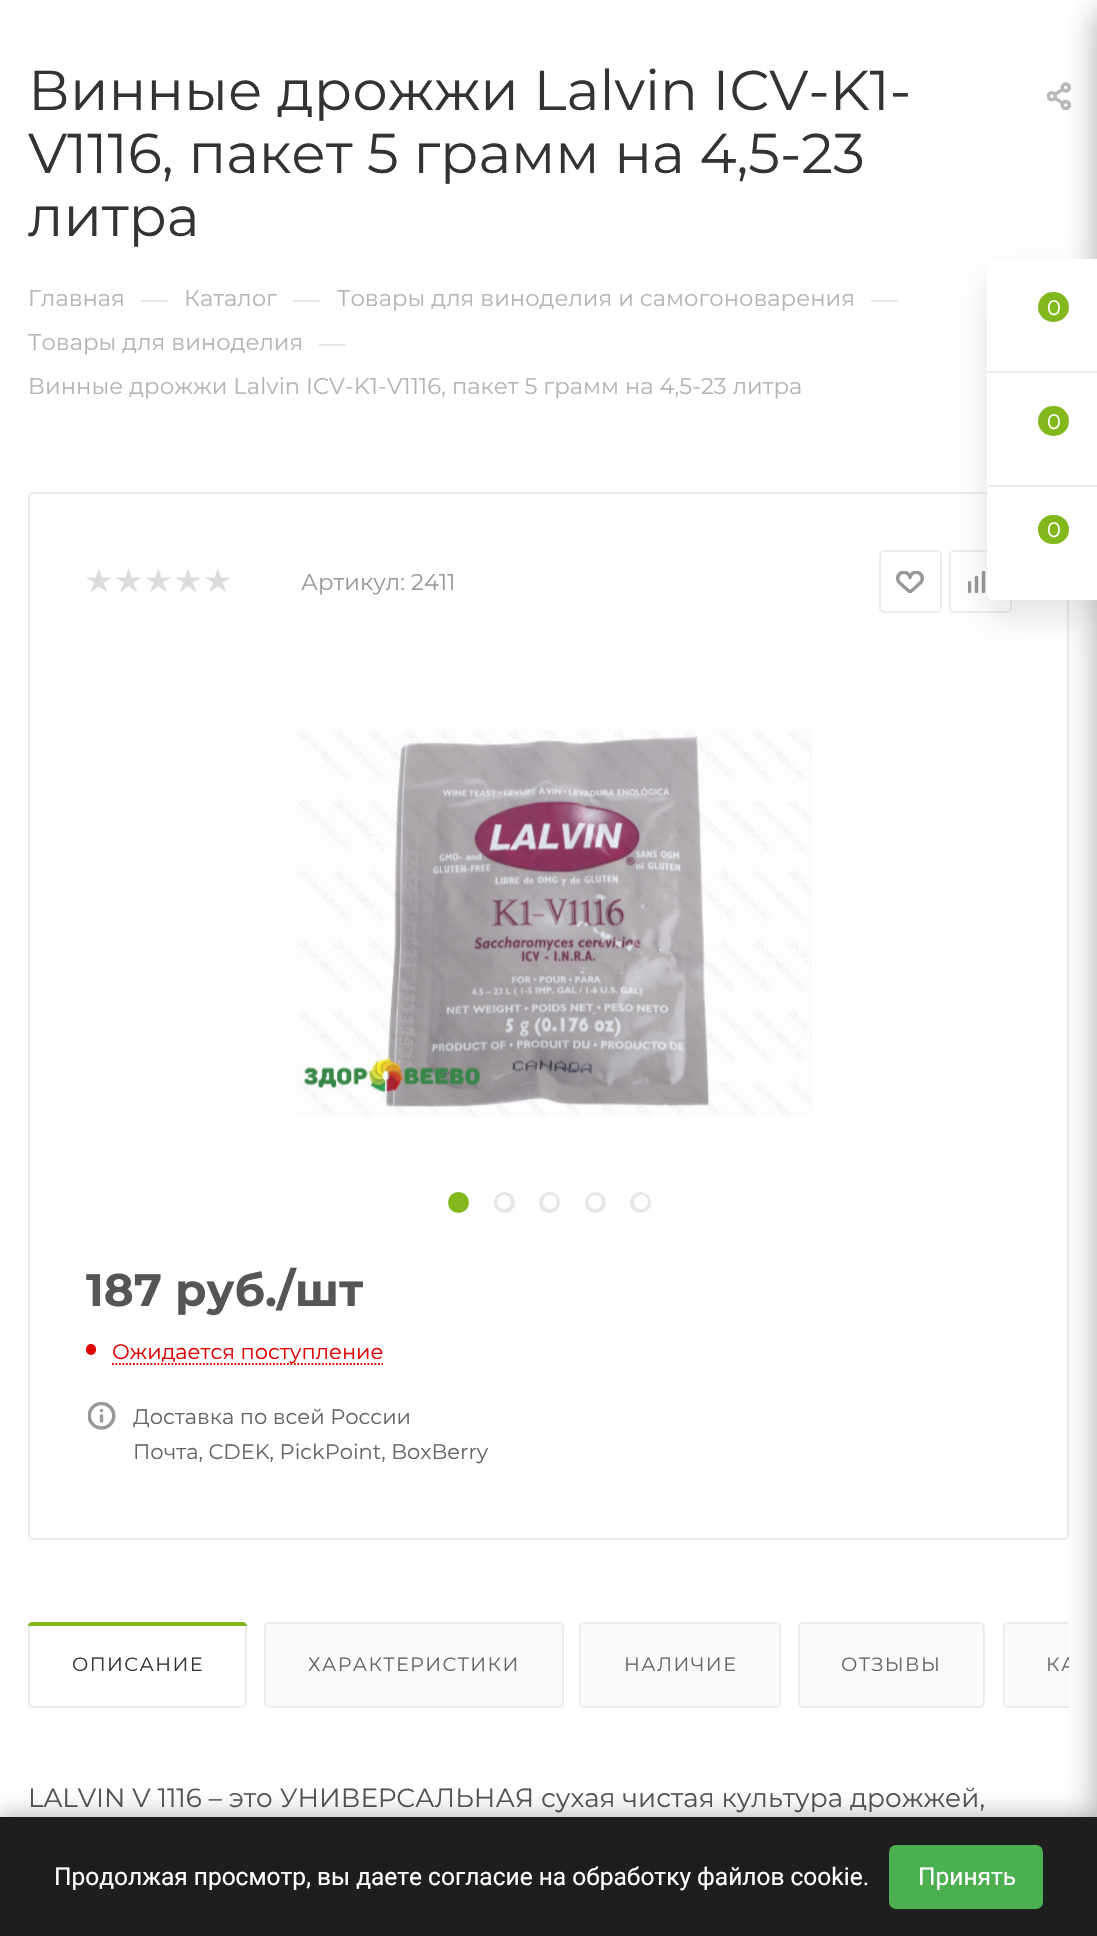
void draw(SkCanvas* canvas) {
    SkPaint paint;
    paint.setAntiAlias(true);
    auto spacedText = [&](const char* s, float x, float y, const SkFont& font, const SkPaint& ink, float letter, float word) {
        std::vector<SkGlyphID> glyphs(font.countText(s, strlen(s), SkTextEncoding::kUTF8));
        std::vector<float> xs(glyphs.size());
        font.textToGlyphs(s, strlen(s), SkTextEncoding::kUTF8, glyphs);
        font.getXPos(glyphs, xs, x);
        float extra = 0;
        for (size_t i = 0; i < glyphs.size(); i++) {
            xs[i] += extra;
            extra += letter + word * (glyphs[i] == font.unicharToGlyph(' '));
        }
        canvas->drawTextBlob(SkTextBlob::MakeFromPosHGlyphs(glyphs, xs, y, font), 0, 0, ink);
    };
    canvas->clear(0xFFFFFFFF);
    SkFont font1(fontMgr->matchFamilyStyle("Montserrat", SkFontStyle::Normal()), 56);
    font1.setSubpixel(true);
    paint.setColor(0xFF333333);
    canvas->drawString("Винные дрожжи Lalvin ICV-K1-", 28, 110, font1, paint);
    canvas->drawString("V1116, пакет 5 грамм на 4,5-23", 28, 173, font1, paint);
    canvas->drawString("литра", 28, 236, font1, paint);
    canvas->drawImageRect(SkImages::DeferredFromEncodedData(SkData::MakeFromFileName("img1.png")), SkRect::MakeXYWH(1047, 82, 24, 28), SkSamplingOptions());
    SkFont font2(fontMgr->matchFamilyStyle("Montserrat", SkFontStyle::Normal()), 22.75f);
    font2.setSubpixel(true);
    paint.setColor(0xFFB6B5B5);
    canvas->drawString("Главная", 28, 306, font2, paint);
    SkFont font3(fontMgr->matchFamilyStyle("Montserrat", SkFontStyle::Normal()), 26.25f);
    font3.setSubpixel(true);
    paint.setColor(0xFFDDDDDD);
    canvas->drawString("—", 141, 308, font3, paint);
    paint.setColor(0xFFB6B5B5);
    canvas->drawString("Каталог", 184, 306, font2, paint);
    paint.setColor(0xFFDDDDDD);
    canvas->drawString("—", 293, 308, font3, paint);
    paint.setColor(0xFFB6B5B5);
    canvas->drawString("Товары для виноделия и самогоноварения", 337, 306, font2, paint);
    paint.setColor(0xFFDDDDDD);
    canvas->drawString("—", 871, 308, font3, paint);
    paint.setColor(0xFFB6B5B5);
    canvas->drawString("Товары для виноделия", 28, 350, font2, paint);
    paint.setColor(0xFFDDDDDD);
    canvas->drawString("—", 319, 352, font3, paint);
    paint.setColor(0xFFB6B5B5);
    canvas->drawString("Винные дрожжи Lalvin ICV-K1-V1116, пакет 5 грамм на 4,5-23 литра", 28, 394, font2, paint);
    paint.setStyle(SkPaint::kStroke_Style);
    paint.setStrokeWidth(2);
    paint.setColor(0xFFECECEC);
    canvas->drawRoundRect(SkRect::MakeXYWH(29, 493, 1039, 1046), 4, 4, paint);
    canvas->drawImageRect(SkImages::DeferredFromEncodedData(SkData::MakeFromFileName("img2.png")), SkRect::MakeXYWH(87, 569, 24, 23), SkSamplingOptions());
    canvas->drawImageRect(SkImages::DeferredFromEncodedData(SkData::MakeFromFileName("img3.png")), SkRect::MakeXYWH(116, 569, 25, 23), SkSamplingOptions());
    canvas->drawImageRect(SkImages::DeferredFromEncodedData(SkData::MakeFromFileName("img4.png")), SkRect::MakeXYWH(146, 569, 25, 23), SkSamplingOptions());
    canvas->drawImageRect(SkImages::DeferredFromEncodedData(SkData::MakeFromFileName("img5.png")), SkRect::MakeXYWH(176, 569, 24, 23), SkSamplingOptions());
    canvas->drawImageRect(SkImages::DeferredFromEncodedData(SkData::MakeFromFileName("img2.png")), SkRect::MakeXYWH(206, 569, 24, 23), SkSamplingOptions());
    paint.setStyle(SkPaint::kFill_Style);
    paint.setColor(0xFF999999);
    canvas->drawString("Артикул: 2411", 301, 590, font2, paint);
    paint.setStyle(SkPaint::kStroke_Style);
    paint.setColor(0xFFECECEC);
    canvas->drawRoundRect(SkRect::MakeXYWH(880, 551, 61, 61), 4, 4, paint);
    canvas->drawImageRect(SkImages::DeferredFromEncodedData(SkData::MakeFromFileName("img6.png")), SkRect::MakeXYWH(896, 571, 28, 22), SkSamplingOptions());
    canvas->drawRoundRect(SkRect::MakeXYWH(950, 551, 61, 61), 4, 4, paint);
    canvas->drawImageRect(SkImages::DeferredFromEncodedData(SkData::MakeFromFileName("img7.png")), SkRect::MakeXYWH(968, 571, 18, 22), SkSamplingOptions());
    canvas->drawImageRect(SkImages::DeferredFromEncodedData(SkData::MakeFromFileName("img8.png")), SkRect::MakeXYWH(296, 728, 516, 389), SkSamplingOptions());
    paint.setStyle(SkPaint::kFill_Style);
    paint.setColor(0xFF83B81D);
    canvas->drawCircle(458.5f, 1202.5f, 10.5f, paint);
    paint.setColor(0xFFE6E6E6);
    canvas->drawCircle(504.5f, 1202.5f, 10.5f, paint);
    paint.setColor(0xFFFFFFFF);
    canvas->drawCircle(504, 1202, 7, paint);
    paint.setColor(0xFFE6E6E6);
    canvas->drawCircle(549.5f, 1202.5f, 10.5f, paint);
    paint.setColor(0xFFFFFFFF);
    canvas->drawCircle(550, 1202, 7, paint);
    paint.setColor(0xFFE6E6E6);
    canvas->drawCircle(595.5f, 1202.5f, 10.5f, paint);
    paint.setColor(0xFFFFFFFF);
    canvas->drawCircle(595, 1202, 7, paint);
    paint.setColor(0xFFE6E6E6);
    canvas->drawCircle(640.5f, 1202.5f, 10.5f, paint);
    paint.setColor(0xFFFFFFFF);
    canvas->drawCircle(641, 1202, 7, paint);
    SkFont font4(fontMgr->matchFamilyStyle("Montserrat", SkFontStyle::Bold()), 45.5f);
    font4.setSubpixel(true);
    paint.setColor(0xFF555555);
    canvas->drawString("187 руб./шт", 86, 1306, font4, paint);
    paint.setColor(0xFFE10000);
    canvas->drawRoundRect(SkRect::MakeXYWH(86, 1344, 10, 11), 5, 5, paint);
    paint.setStyle(SkPaint::kStroke_Style);
    paint.setStrokeWidth(1.8f);
    paint.setPathEffect(SkDashPathEffect::Make({{1.75f, 1.75f}}, 0));
    canvas->drawPath(SkPathBuilder().moveTo(112, 1364).lineTo(383, 1364).detach(), paint);
    paint.setPathEffect(nullptr);
    SkFont font5(fontMgr->matchFamilyStyle("Montserrat", SkFontStyle::Normal()), 21);
    font5.setSubpixel(true);
    paint.setStyle(SkPaint::kFill_Style);
    canvas->drawString("Ожидается поступление", 112, 1359, font5, paint);
    canvas->drawImageRect(SkImages::DeferredFromEncodedData(SkData::MakeFromFileName("img9.png")), SkRect::MakeXYWH(88, 1402, 28, 28), SkSamplingOptions());
    paint.setColor(0xFF666666);
    canvas->drawString("Доставка по всей России", 133, 1424, font5, paint);
    canvas->drawString("Почта, CDEK, PickPoint, BoxBerry", 133, 1459, font5, paint);
    paint.setColor(0xFFFAFAFA);
    canvas->drawRoundRect(SkRect::MakeXYWH(29, 1623, 217, 84), 4, 4, paint);
    paint.setStyle(SkPaint::kStroke_Style);
    paint.setStrokeWidth(2);
    paint.setColor(0xFFECECEC);
    canvas->drawRoundRect(SkRect::MakeXYWH(29, 1623, 217, 84), 4, 4, paint);
    paint.setStyle(SkPaint::kFill_Style);
    paint.setColor(0xFFFFFFFF);
    canvas->drawRoundRect(SkRect::MakeXYWH(30, 1624, 215, 82), 5, 5, paint);
    paint.setColor(0xFF83B81D);
    canvas->drawPath(SkPathBuilder().moveTo(32, 1622).lineTo(243, 1622).cubicTo(245, 1622, 247, 1624, 247, 1626).lineTo(28, 1626).cubicTo(28, 1624, 30, 1622, 32, 1622).close().detach(), paint);
    SkFont font6(fontMgr->matchFamilyStyle("Montserrat", SkFontStyle::Normal()), 19.25f);
    font6.setSubpixel(true);
    paint.setColor(0xFF333333);
    spacedText("ОПИСАНИЕ", 72, 1671, font6, paint, 1.4f, 0);
    paint.setColor(0xFFFAFAFA);
    canvas->drawRoundRect(SkRect::MakeXYWH(265, 1623, 298, 84), 4, 4, paint);
    paint.setStyle(SkPaint::kStroke_Style);
    paint.setColor(0xFFECECEC);
    canvas->drawRoundRect(SkRect::MakeXYWH(265, 1623, 298, 84), 4, 4, paint);
    paint.setStyle(SkPaint::kFill_Style);
    paint.setColor(0xFF666666);
    spacedText("ХАРАКТЕРИСТИКИ", 308, 1671, font6, paint, 1.4f, 0);
    paint.setColor(0xFFFAFAFA);
    canvas->drawRoundRect(SkRect::MakeXYWH(580, 1623, 200, 84), 4, 4, paint);
    paint.setStyle(SkPaint::kStroke_Style);
    paint.setColor(0xFFECECEC);
    canvas->drawRoundRect(SkRect::MakeXYWH(580, 1623, 200, 84), 4, 4, paint);
    paint.setStyle(SkPaint::kFill_Style);
    paint.setColor(0xFF666666);
    spacedText("НАЛИЧИЕ", 624, 1671, font6, paint, 1.4f, 0);
    paint.setColor(0xFFFAFAFA);
    canvas->drawRoundRect(SkRect::MakeXYWH(799, 1623, 185, 84), 4, 4, paint);
    paint.setStyle(SkPaint::kStroke_Style);
    paint.setColor(0xFFECECEC);
    canvas->drawRoundRect(SkRect::MakeXYWH(799, 1623, 185, 84), 4, 4, paint);
    paint.setStyle(SkPaint::kFill_Style);
    paint.setColor(0xFF666666);
    spacedText("ОТЗЫВЫ", 841, 1671, font6, paint, 1.4f, 0);
    paint.setColor(0xFFFAFAFA);
    canvas->drawPath(SkPathBuilder().moveTo(1008, 1622).lineTo(1069, 1622).lineTo(1069, 1708).lineTo(1008, 1708).cubicTo(1005, 1708, 1003, 1706, 1003, 1703).lineTo(1003, 1627).cubicTo(1003, 1624, 1005, 1622, 1008, 1622).close().detach(), paint);
    canvas->save();
    canvas->clipRect(SkRect::MakeXYWH(28, 1622, 1041, 86));
    paint.setStyle(SkPaint::kStroke_Style);
    paint.setColor(0xFFECECEC);
    canvas->drawRoundRect(SkRect::MakeXYWH(1004, 1623, 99, 84), 4, 4, paint);
    paint.setStyle(SkPaint::kFill_Style);
    paint.setColor(0xFF666666);
    spacedText("КА", 1046, 1671, font6, paint, 1.4f, 0);
    canvas->restore();
    paint.setColor(0xFF555555);
    canvas->drawString("LALVIN V 1116 – это УНИВЕРСАЛЬНАЯ сухая чистая культура дрожжей,", 28, 1807, font3, paint);
    paint.setColor(0x662C2C2C);
    paint.setMaskFilter(SkMaskFilter::MakeBlur(kNormal_SkBlurStyle, 16));
    canvas->drawRoundRect(SkRect::MakeXYWH(1097, 11, 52, 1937), 4, 4, paint);
    paint.setMaskFilter(nullptr);
    paint.setColor(0x1A000000);
    paint.setMaskFilter(SkMaskFilter::MakeBlur(kNormal_SkBlurStyle, 17.5f));
    canvas->drawRoundRect(SkRect::MakeXYWH(987, 277, 110, 341), 7, 7, paint);
    paint.setMaskFilter(nullptr);
    paint.setColor(0xFFFFFFFF);
    canvas->drawPath(SkPathBuilder().moveTo(994, 259).lineTo(1097, 259).lineTo(1097, 600).lineTo(994, 600).cubicTo(990, 600, 987, 597, 987, 593).lineTo(987, 266).cubicTo(987, 262, 990, 259, 994, 259).close().detach(), paint);
    paint.setColor(0xFFECECEC);
    canvas->drawRect(SkRect::MakeXYWH(987, 371, 110, 2), paint);
    paint.setColor(0xFF83B81D);
    canvas->drawRoundRect(SkRect::MakeXYWH(1038, 292, 31, 30), 15, 15, paint);
    paint.setColor(0xFFFFFFFF);
    canvas->drawString("0", 1047, 315, font5, paint);
    paint.setColor(0xFFECECEC);
    canvas->drawRect(SkRect::MakeXYWH(987, 485, 110, 2), paint);
    paint.setColor(0xFF83B81D);
    canvas->drawRoundRect(SkRect::MakeXYWH(1038, 406, 31, 30), 15, 15, paint);
    paint.setColor(0xFFFFFFFF);
    canvas->drawString("0", 1047, 429, font5, paint);
    paint.setColor(0xFF83B81D);
    canvas->drawRoundRect(SkRect::MakeXYWH(1038, 515, 31, 29), 14.5f, 14.5f, paint);
    paint.setColor(0xFFFFFFFF);
    canvas->drawString("0", 1047, 537, font5, paint);
    paint.setColor(0x40000000);
    paint.setMaskFilter(SkMaskFilter::MakeBlur(kNormal_SkBlurStyle, 10.5f));
    canvas->drawRect(SkRect::MakeXYWH(0, 1813, 1097, 121), paint);
    paint.setMaskFilter(nullptr);
    paint.setColor(0xFF1E1E1E);
    canvas->drawRect(SkRect::MakeXYWH(0, 1817, 1097, 119), paint);
    SkFont font7(fontMgr->matchFamilyStyle("Roboto", SkFontStyle::Normal()), 24.5f);
    font7.setSubpixel(true);
    paint.setColor(0xFFFFFFFF);
    canvas->drawString("Продолжая просмотр, вы даете согласие на обработку файлов cookie.", 54, 1885, font7, paint);
    paint.setColor(0xFF4CAF50);
    canvas->drawRoundRect(SkRect::MakeXYWH(889, 1845, 154, 64), 7, 7, paint);
    paint.setColor(0xFFFFFFFF);
    canvas->drawString("Принять", 918, 1885, font7, paint);
}
